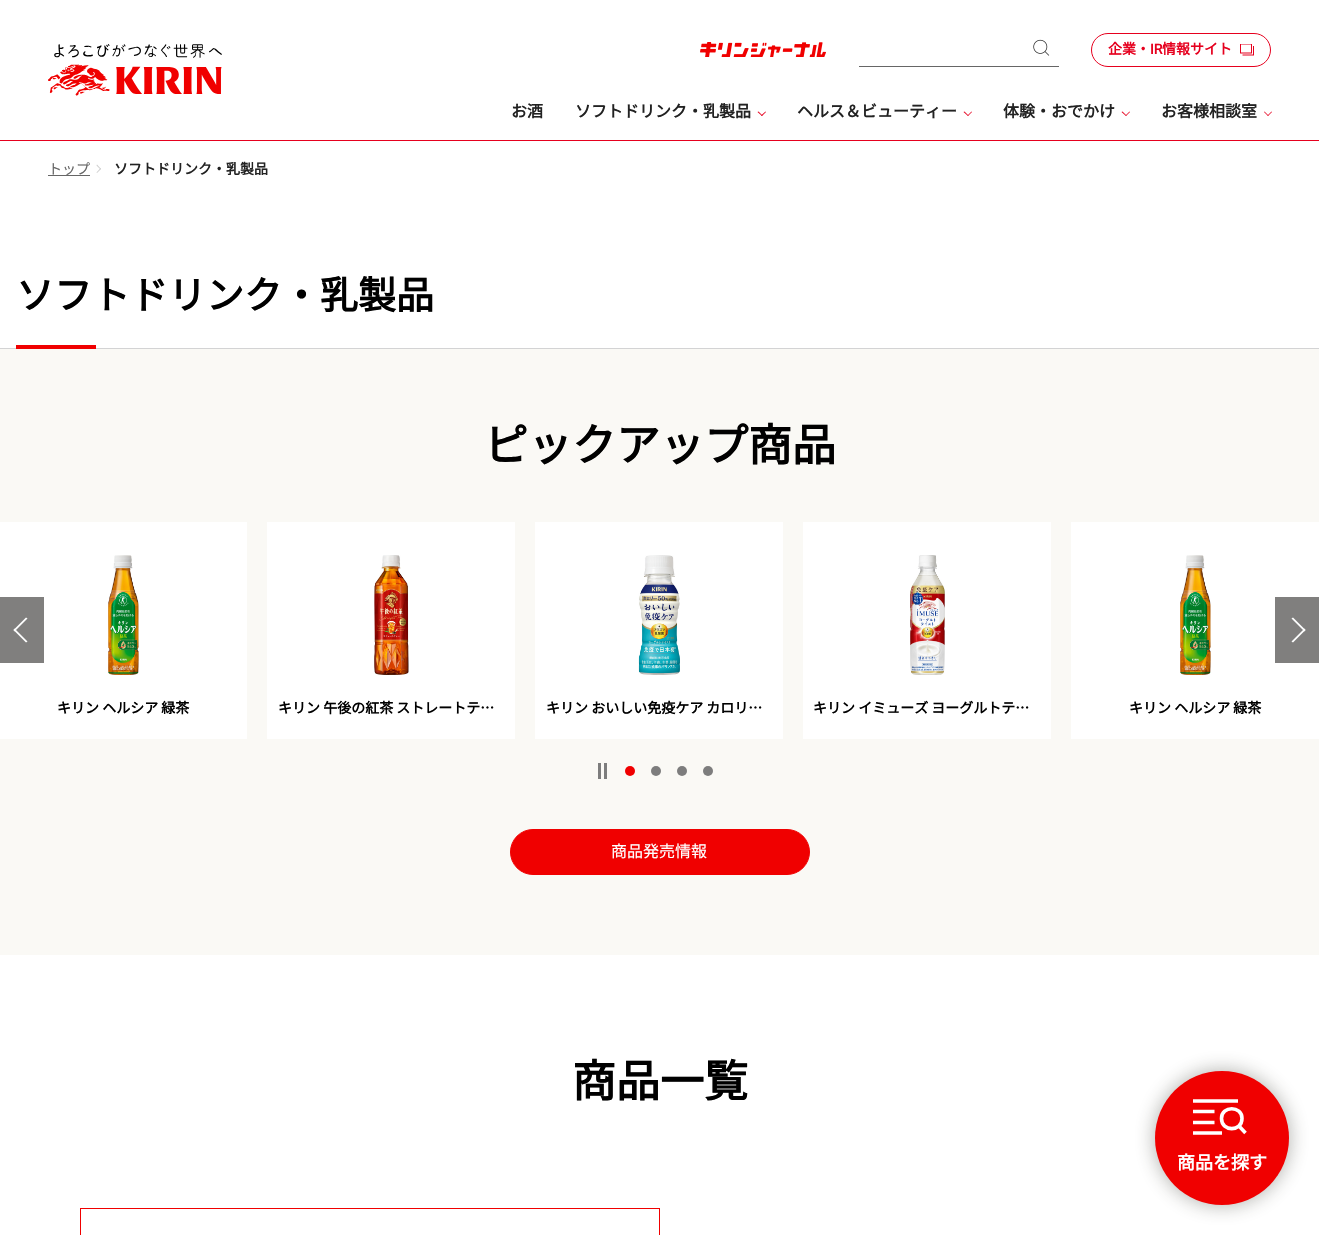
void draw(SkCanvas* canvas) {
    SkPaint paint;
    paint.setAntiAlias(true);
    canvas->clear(0xFFFFFFFF);
    paint.setColor(0xFFE6001E);
    canvas->drawRect(SkRect::MakeXYWH(0, 140, 1319, 1), paint);
    canvas->drawImageRect(SkImages::DeferredFromEncodedData(SkData::MakeFromFileName("img1.png")), SkRect::MakeXYWH(48, 44, 174, 52), SkSamplingOptions());
    canvas->drawImageRect(SkImages::DeferredFromEncodedData(SkData::MakeFromFileName("img2.png")), SkRect::MakeXYWH(700, 42, 126, 15), SkSamplingOptions());
    paint.setColor(0xFF666666);
    canvas->drawRect(SkRect::MakeXYWH(859, 66, 200, 1), paint);
    canvas->drawImageRect(SkImages::DeferredFromEncodedData(SkData::MakeFromFileName("img3.png")), SkRect::MakeXYWH(1033, 39, 17, 17), SkSamplingOptions());
    paint.setStyle(SkPaint::kStroke_Style);
    paint.setStrokeWidth(1);
    paint.setColor(0xFFE6001E);
    canvas->drawRoundRect(SkRect::MakeXYWH(1091.5f, 33.5f, 179, 33), 16.5f, 16.5f, paint);
    SkFont font1(fontMgr->matchFamilyStyle("Noto Sans JP", SkFontStyle::Bold()), 14);
    font1.setSubpixel(true);
    paint.setStyle(SkPaint::kFill_Style);
    canvas->drawString("企業・", 1108, 54, font1, paint);
    SkFont font2(fontMgr->matchFamilyStyle("Roboto", SkFontStyle::Bold()), 14);
    font2.setSubpixel(true);
    canvas->drawString("IR", 1150, 54, font2, paint);
    canvas->drawString("情報サイト", 1162, 54, font1, paint);
    canvas->drawImageRect(SkImages::DeferredFromEncodedData(SkData::MakeFromFileName("img4.png")), SkRect::MakeXYWH(1240, 44, 14, 12), SkSamplingOptions());
    SkFont font3(fontMgr->matchFamilyStyle("Noto Sans JP", SkFontStyle::Bold()), 16);
    font3.setSubpixel(true);
    paint.setColor(0xFF222222);
    canvas->drawString("お酒", 511, 117, font3, paint);
    canvas->drawString("ソフトドリンク・乳製品", 575, 117, font3, paint);
    paint.setColor(0xFFE6001E);
    canvas->drawPath(SkPathBuilder().moveTo(765.5f, 111.5f).lineTo(766, 112).lineTo(762, 116).lineTo(761, 115.5f).close().detach(), paint);
    canvas->drawPath(SkPathBuilder().moveTo(758.5f, 111.5f).lineTo(762.5f, 115.5f).lineTo(762, 116).lineTo(757.5f, 112).close().detach(), paint);
    paint.setColor(0xFF222222);
    canvas->drawString("ヘルス＆ビューティー", 797, 117, font3, paint);
    paint.setColor(0xFFE6001E);
    canvas->drawPath(SkPathBuilder().moveTo(971.5f, 111.5f).lineTo(972, 112).lineTo(968, 116).lineTo(967.5f, 115.5f).close().detach(), paint);
    canvas->drawPath(SkPathBuilder().moveTo(964.5f, 111.5f).lineTo(968.5f, 115.5f).lineTo(968, 116).lineTo(963.5f, 112).close().detach(), paint);
    paint.setColor(0xFF222222);
    canvas->drawString("体験・おでかけ", 1003, 117, font3, paint);
    paint.setColor(0xFFE6001E);
    canvas->drawPath(SkPathBuilder().moveTo(1129.5f, 111.5f).lineTo(1130, 112).lineTo(1126, 116).lineTo(1125.5f, 115.5f).close().detach(), paint);
    canvas->drawPath(SkPathBuilder().moveTo(1122.5f, 111.5f).lineTo(1126.5f, 115.5f).lineTo(1126, 116).lineTo(1121.5f, 112).close().detach(), paint);
    paint.setColor(0xFF222222);
    canvas->drawString("お客様相談室", 1161, 117, font3, paint);
    paint.setColor(0xFFE6001E);
    canvas->drawPath(SkPathBuilder().moveTo(1271.5f, 111.5f).lineTo(1272, 112).lineTo(1268, 116).lineTo(1267.5f, 115.5f).close().detach(), paint);
    canvas->drawPath(SkPathBuilder().moveTo(1264.5f, 111.5f).lineTo(1268.5f, 115.5f).lineTo(1268, 116).lineTo(1264, 112).close().detach(), paint);
    paint.setColor(0xFF666666);
    canvas->drawRect(SkRect::MakeXYWH(48, 175, 42, 1), paint);
    SkFont font4(fontMgr->matchFamilyStyle("Noto Sans JP", SkFontStyle(100, SkFontStyle::kNormal_Width, SkFontStyle::kUpright_Slant)), 14);
    font4.setSubpixel(true);
    canvas->drawString("トップ", 48, 174, font4, paint);
    paint.setColor(0xFFCCCCCC);
    canvas->drawPath(SkPathBuilder().moveTo(97, 164.5f).lineTo(101, 169).lineTo(100.5f, 169.5f).lineTo(96.5f, 165.5f).close().detach(), paint);
    canvas->drawPath(SkPathBuilder().moveTo(100.5f, 168).lineTo(101, 169).lineTo(97, 173).lineTo(96.5f, 172.5f).close().detach(), paint);
    paint.setColor(0xFF222222);
    canvas->drawString("ソフトドリンク・乳製品", 114, 174, font1, paint);
    paint.setColor(0xFFD3D3D4);
    canvas->drawRect(SkRect::MakeXYWH(0, 348, 1319, 1), paint);
    SkFont font5(fontMgr->matchFamilyStyle("Noto Sans JP", SkFontStyle::Bold()), 38);
    font5.setSubpixel(true);
    paint.setColor(0xFF000000);
    canvas->drawString("ソフトドリンク・乳製品", 16, 309, font5, paint);
    paint.setColor(0xFFF00000);
    canvas->drawRect(SkRect::MakeXYWH(16, 345, 80, 4), paint);
    paint.setColor(0xFFFAF9F5);
    canvas->drawRect(SkRect::MakeXYWH(0, 349, 1319, 606), paint);
    SkFont font6(fontMgr->matchFamilyStyle("Noto Sans JP", SkFontStyle::Bold()), 44);
    font6.setSubpixel(true);
    paint.setColor(0xFF000000);
    canvas->drawString("ピックアップ商品", 484, 461, font6, paint);
    paint.setColor(0xFFFFFFFF);
    canvas->drawRect(SkRect::MakeXYWH(0, 522, 247, 217), paint);
    paint.setColor(0xFF807F7E);
    canvas->drawRect(SkRect::MakeXYWH(0, 597, 44, 66), paint);
    paint.setColor(0xFFFFFFFF);
    canvas->drawPath(SkPathBuilder().moveTo(14.5f, 628.5f).lineTo(27.5f, 641.5f).lineTo(26, 642.5f).lineTo(13.5f, 630).close().detach(), paint);
    canvas->drawPath(SkPathBuilder().moveTo(26, 617.5f).lineTo(27.5f, 618.5f).lineTo(14.5f, 631.5f).lineTo(13.5f, 630).close().detach(), paint);
    canvas->drawRect(SkRect::MakeXYWH(1071, 522, 248, 217), paint);
    paint.setColor(0xFF807F7E);
    canvas->drawRect(SkRect::MakeXYWH(1275, 597, 44, 66), paint);
    paint.setColor(0xFFFFFFFF);
    canvas->drawPath(SkPathBuilder().moveTo(1293, 617.5f).lineTo(1305.5f, 630).lineTo(1304.5f, 631.5f).lineTo(1291.5f, 618.5f).close().detach(), paint);
    canvas->drawPath(SkPathBuilder().moveTo(1304.5f, 628.5f).lineTo(1305.5f, 630).lineTo(1293, 642.5f).lineTo(1291.5f, 641.5f).close().detach(), paint);
    canvas->drawImageRect(SkImages::DeferredFromEncodedData(SkData::MakeFromFileName("img5.png")), SkRect::MakeXYWH(108, 555, 31, 120), SkSamplingOptions());
    paint.setColor(0xFF000000);
    canvas->drawString("キリン ヘルシア 緑茶", 57, 713, font1, paint);
    paint.setColor(0xFFFFFFFF);
    canvas->drawRect(SkRect::MakeXYWH(267, 522, 248, 217), paint);
    canvas->drawImageRect(SkImages::DeferredFromEncodedData(SkData::MakeFromFileName("img6.png")), SkRect::MakeXYWH(374, 555, 35, 120), SkSamplingOptions());
    paint.setColor(0xFF000000);
    canvas->drawString("キリン 午後の紅茶 ストレートテ…", 278, 713, font1, paint);
    paint.setColor(0xFFFFFFFF);
    canvas->drawRect(SkRect::MakeXYWH(535, 522, 248, 217), paint);
    canvas->drawImageRect(SkImages::DeferredFromEncodedData(SkData::MakeFromFileName("img7.png")), SkRect::MakeXYWH(638, 555, 42, 120), SkSamplingOptions());
    paint.setColor(0xFF000000);
    canvas->drawString("キリン おいしい免疫ケア カロリ…", 546, 713, font1, paint);
    paint.setColor(0xFFFFFFFF);
    canvas->drawRect(SkRect::MakeXYWH(803, 522, 248, 217), paint);
    canvas->drawImageRect(SkImages::DeferredFromEncodedData(SkData::MakeFromFileName("img8.png")), SkRect::MakeXYWH(910, 555, 35, 120), SkSamplingOptions());
    paint.setColor(0xFF000000);
    canvas->drawString("キリン イミューズ ヨーグルトテ…", 813, 713, font1, paint);
    canvas->drawImageRect(SkImages::DeferredFromEncodedData(SkData::MakeFromFileName("img5.png")), SkRect::MakeXYWH(1180, 555, 31, 120), SkSamplingOptions());
    canvas->drawString("キリン ヘルシア 緑茶", 1129, 713, font1, paint);
    paint.setColor(0xFF7D7D7D);
    canvas->drawRect(SkRect::MakeXYWH(598, 763, 3, 16), paint);
    canvas->drawRect(SkRect::MakeXYWH(604, 763, 3, 16), paint);
    paint.setColor(0xFFF00000);
    canvas->drawCircle(630, 771, 5, paint);
    paint.setColor(0xFF7D7D7D);
    canvas->drawCircle(656, 771, 5, paint);
    canvas->drawCircle(682, 771, 5, paint);
    canvas->drawCircle(708, 771, 5, paint);
    paint.setColor(0xFFF00000);
    canvas->drawRoundRect(SkRect::MakeXYWH(510.5f, 829.5f, 299, 45), 22.5f, 22.5f, paint);
    paint.setStyle(SkPaint::kStroke_Style);
    canvas->drawRoundRect(SkRect::MakeXYWH(510.5f, 829.5f, 299, 45), 22.5f, 22.5f, paint);
    SkFont font7(fontMgr->matchFamilyStyle("Noto Sans JP", SkFontStyle(100, SkFontStyle::kNormal_Width, SkFontStyle::kUpright_Slant)), 16);
    font7.setSubpixel(true);
    paint.setStyle(SkPaint::kFill_Style);
    paint.setColor(0xFFFFFFFF);
    canvas->drawString("商品発売情報", 611, 857, font7, paint);
    paint.setColor(0xFF000000);
    canvas->drawString("商品一覧", 572, 1097, font6, paint);
    paint.setColor(0xFFF00000);
    canvas->drawRect(SkRect::MakeXYWH(80, 1208, 580, 1), paint);
    canvas->drawRect(SkRect::MakeXYWH(659, 1208, 1, 27), paint);
    canvas->drawRect(SkRect::MakeXYWH(80, 1208, 1, 27), paint);
    paint.setColor(0x66333129);
    paint.setMaskFilter(SkMaskFilter::MakeBlur(kNormal_SkBlurStyle, 10));
    canvas->drawRoundRect(SkRect::MakeXYWH(1155, 1071, 134, 134), 67, 67, paint);
    paint.setMaskFilter(nullptr);
    paint.setColor(0xFFF00000);
    canvas->drawCircle(1222, 1138, 67, paint);
    paint.setStyle(SkPaint::kStroke_Style);
    paint.setStrokeWidth(3.6f);
    paint.setColor(0xFFFFFFFF);
    canvas->drawPath(SkPathBuilder().moveTo(1193, 1101).lineTo(1238, 1101).moveTo(1193, 1111.5f).lineTo(1214.5f, 1111.5f).moveTo(1193, 1122.5f).lineTo(1214.5f, 1122.5f).moveTo(1193, 1133).lineTo(1222, 1133).detach(), paint);
    paint.setStrokeJoin(SkPaint::kRound_Join);
    canvas->drawPath(SkPathBuilder().moveTo(1242, 1118.5f).cubicTo(1242, 1132, 1221.5f, 1132, 1221.5f, 1118.5f).cubicTo(1221.5f, 1105.5f, 1242, 1105.5f, 1242, 1118.5f).close().moveTo(1245.5f, 1133).lineTo(1238, 1125).detach(), paint);
    SkFont font8(fontMgr->matchFamilyStyle("Noto Sans JP", SkFontStyle::Bold()), 18);
    font8.setSubpixel(true);
    paint.setStyle(SkPaint::kFill_Style);
    canvas->drawString("商品を探す", 1177, 1169, font8, paint);
}
